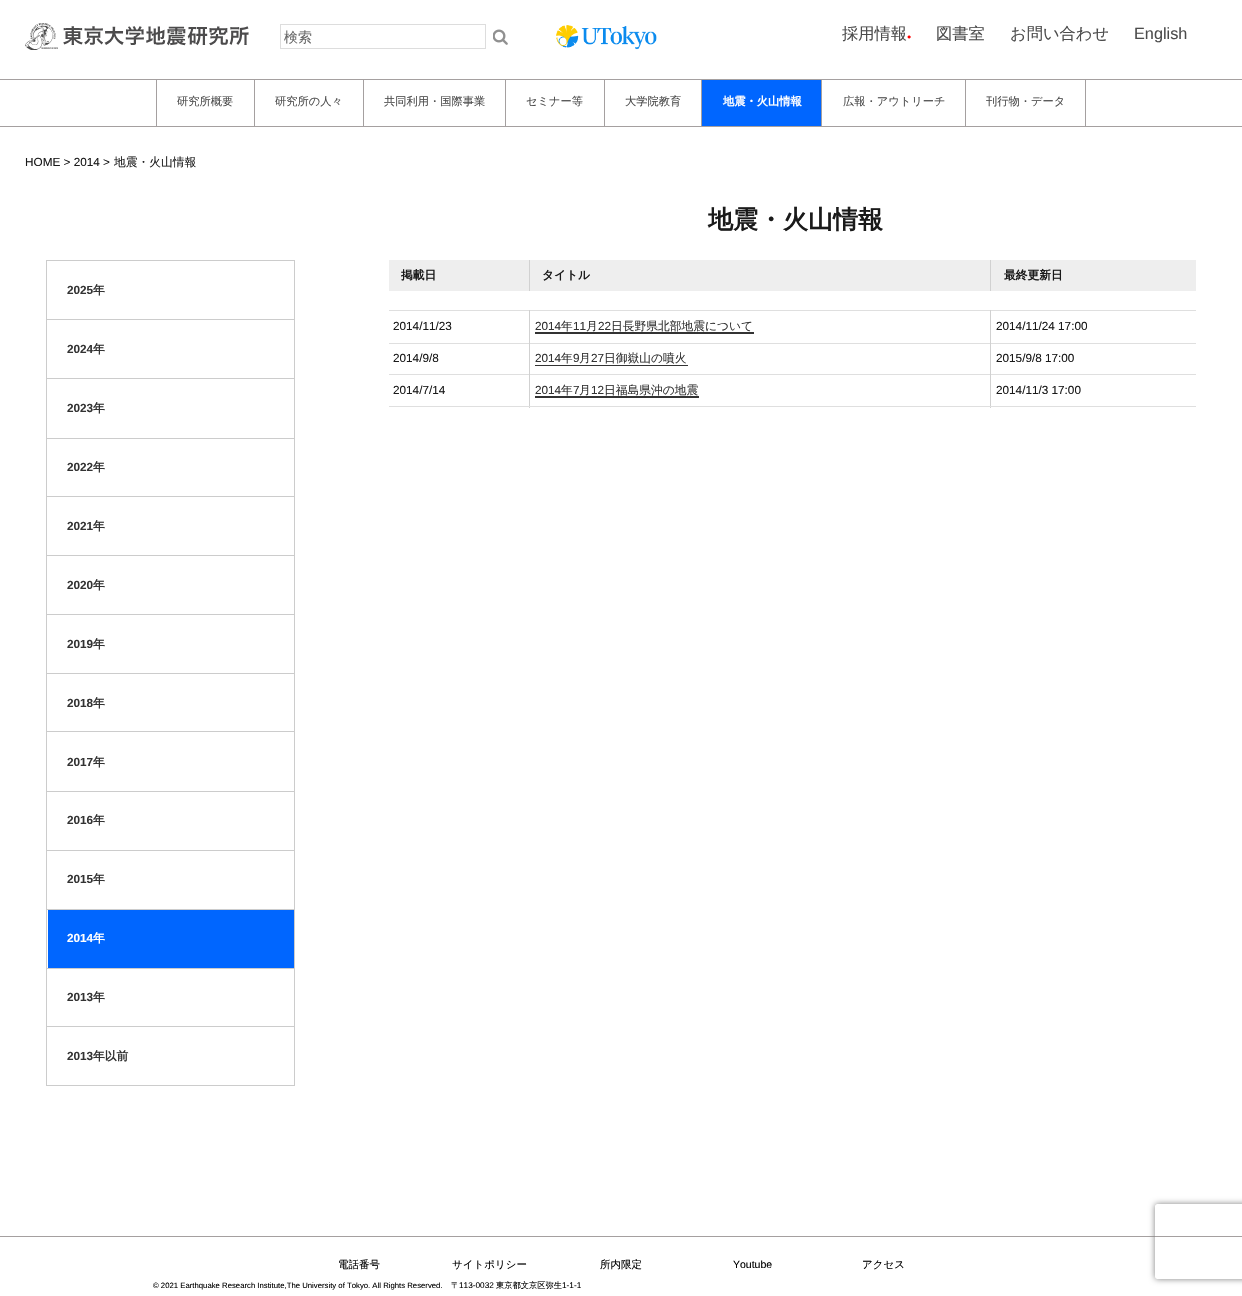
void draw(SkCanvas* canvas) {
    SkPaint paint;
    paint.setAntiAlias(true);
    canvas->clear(0xFFFFFFFF);
    canvas->drawImageRect(SkImages::DeferredFromEncodedData(SkData::MakeFromFileName("img1.png")), SkRect::MakeXYWH(25, 23, 224, 27), SkSamplingOptions());
    paint.setStyle(SkPaint::kStroke_Style);
    paint.setStrokeWidth(1);
    paint.setColor(0xFFDDDDDD);
    canvas->drawRect(SkRect::MakeXYWH(280.5f, 24.5f, 205, 24), paint);
    SkFont font1(fontMgr->matchFamilyStyle("WenQuanYi Zen Hei", SkFontStyle(500, SkFontStyle::kNormal_Width, SkFontStyle::kUpright_Slant)), 14);
    font1.setSubpixel(true);
    paint.setStyle(SkPaint::kFill_Style);
    paint.setColor(0xFF686868);
    canvas->drawString("検索", 284, 42, font1, paint);
    canvas->drawImageRect(SkImages::DeferredFromEncodedData(SkData::MakeFromFileName("img2.png")), SkRect::MakeXYWH(493, 29, 15, 16), SkSamplingOptions());
    canvas->drawImageRect(SkImages::DeferredFromEncodedData(SkData::MakeFromFileName("img3.png")), SkRect::MakeXYWH(556, 25, 101, 25), SkSamplingOptions());
    SkFont font2(fontMgr->matchFamilyStyle("WenQuanYi Zen Hei", SkFontStyle(500, SkFontStyle::kNormal_Width, SkFontStyle::kUpright_Slant)), 16.25f);
    font2.setSubpixel(true);
    paint.setColor(0xFF4C4C4C);
    canvas->drawString("採用情報", 842, 39, font2, paint);
    SkFont font3(fontMgr->matchFamilyStyle("Liberation Sans", SkFontStyle::Normal()), 7);
    font3.setSubpixel(true);
    paint.setColor(0xFFFF0000);
    canvas->drawString("●", 907, 39, font3, paint);
    paint.setColor(0xFF4C4C4C);
    canvas->drawString("図書室", 936, 39, font2, paint);
    canvas->drawString("お問い合わせ", 1010, 39, font2, paint);
    SkFont font4(fontMgr->matchFamilyStyle("Liberation Sans", SkFontStyle::Normal()), 16.25f);
    font4.setSubpixel(true);
    canvas->drawString("English", 1134, 39, font4, paint);
    paint.setColor(0xFFA5A0A0);
    canvas->drawRect(SkRect::MakeXYWH(0, 79, 1242, 1), paint);
    canvas->drawRect(SkRect::MakeXYWH(0, 126, 1242, 1), paint);
    canvas->drawRect(SkRect::MakeXYWH(156, 80, 1, 46), paint);
    SkFont font5(fontMgr->matchFamilyStyle("WenQuanYi Zen Hei", SkFontStyle(500, SkFontStyle::kNormal_Width, SkFontStyle::kUpright_Slant)), 11.25f);
    font5.setSubpixel(true);
    paint.setColor(0xFF4C4C4C);
    canvas->drawString("研究所概要", 177, 105, font5, paint);
    paint.setColor(0xFFA5A0A0);
    canvas->drawRect(SkRect::MakeXYWH(254, 80, 1, 46), paint);
    paint.setColor(0xFF4C4C4C);
    canvas->drawString("研究所の人々", 275, 105, font5, paint);
    paint.setColor(0xFFA5A0A0);
    canvas->drawRect(SkRect::MakeXYWH(363, 80, 1, 46), paint);
    paint.setColor(0xFF4C4C4C);
    canvas->drawString("共同利用・国際事業", 384, 105, font5, paint);
    paint.setColor(0xFFA5A0A0);
    canvas->drawRect(SkRect::MakeXYWH(505, 80, 1, 46), paint);
    paint.setColor(0xFF4C4C4C);
    canvas->drawString("セミナー等", 526, 105, font5, paint);
    paint.setColor(0xFFA5A0A0);
    canvas->drawRect(SkRect::MakeXYWH(604, 80, 1, 46), paint);
    paint.setColor(0xFF4C4C4C);
    canvas->drawString("大学院教育", 625, 105, font5, paint);
    paint.setColor(0xFF0066FF);
    canvas->drawRect(SkRect::MakeXYWH(702, 80, 119, 46), paint);
    paint.setColor(0xFFA5A0A0);
    canvas->drawRect(SkRect::MakeXYWH(701, 80, 1, 46), paint);
    SkFont font6(fontMgr->matchFamilyStyle("WenQuanYi Zen Hei", SkFontStyle::Bold()), 11.25f);
    font6.setSubpixel(true);
    paint.setColor(0xFFFFFFFF);
    canvas->drawString("地震・火山情報", 723, 105, font6, paint);
    paint.setColor(0xFFA5A0A0);
    canvas->drawRect(SkRect::MakeXYWH(821, 80, 1, 46), paint);
    paint.setColor(0xFF4C4C4C);
    canvas->drawString("広報・アウトリーチ", 843, 105, font5, paint);
    paint.setColor(0xFFA5A0A0);
    canvas->drawRect(SkRect::MakeXYWH(1085, 80, 1, 46), paint);
    canvas->drawRect(SkRect::MakeXYWH(965, 80, 1, 46), paint);
    paint.setColor(0xFF4C4C4C);
    canvas->drawString("刊行物・データ", 986, 105, font5, paint);
    SkFont font7(fontMgr->matchFamilyStyle("Liberation Sans", SkFontStyle::Normal()), 11.75f);
    font7.setSubpixel(true);
    paint.setColor(0xFF1A1A1A);
    canvas->drawString("HOME > 2014 >", 25, 166, font7, paint);
    SkFont font8(fontMgr->matchFamilyStyle("WenQuanYi Zen Hei", SkFontStyle(500, SkFontStyle::kNormal_Width, SkFontStyle::kUpright_Slant)), 11.75f);
    font8.setSubpixel(true);
    canvas->drawString("地震・火山情報", 114, 166, font8, paint);
    paint.setColor(0xFFCCCCCC);
    canvas->drawRect(SkRect::MakeXYWH(46, 260, 249, 1), paint);
    canvas->drawRect(SkRect::MakeXYWH(294, 260, 1, 59), paint);
    canvas->drawRect(SkRect::MakeXYWH(46, 260, 1, 59), paint);
    SkFont font9(fontMgr->matchFamilyStyle("Liberation Sans", SkFontStyle::Bold()), 11.75f);
    font9.setSubpixel(true);
    paint.setColor(0xFF333333);
    canvas->drawString("2025", 67, 294, font9, paint);
    SkFont font10(fontMgr->matchFamilyStyle("WenQuanYi Zen Hei", SkFontStyle::Bold()), 11.75f);
    font10.setSubpixel(true);
    canvas->drawString("年", 93, 294, font10, paint);
    paint.setColor(0xFFCCCCCC);
    canvas->drawRect(SkRect::MakeXYWH(46, 319, 249, 1), paint);
    canvas->drawRect(SkRect::MakeXYWH(294, 319, 1, 59), paint);
    canvas->drawRect(SkRect::MakeXYWH(46, 319, 1, 59), paint);
    paint.setColor(0xFF333333);
    canvas->drawString("2024", 67, 353, font9, paint);
    canvas->drawString("年", 93, 353, font10, paint);
    paint.setColor(0xFFCCCCCC);
    canvas->drawRect(SkRect::MakeXYWH(46, 378, 249, 1), paint);
    canvas->drawRect(SkRect::MakeXYWH(294, 378, 1, 60), paint);
    canvas->drawRect(SkRect::MakeXYWH(46, 378, 1, 60), paint);
    paint.setColor(0xFF333333);
    canvas->drawString("2023", 67, 412, font9, paint);
    canvas->drawString("年", 93, 412, font10, paint);
    paint.setColor(0xFFCCCCCC);
    canvas->drawRect(SkRect::MakeXYWH(46, 438, 249, 1), paint);
    canvas->drawRect(SkRect::MakeXYWH(294, 438, 1, 58), paint);
    canvas->drawRect(SkRect::MakeXYWH(46, 438, 1, 58), paint);
    paint.setColor(0xFF333333);
    canvas->drawString("2022", 67, 471, font9, paint);
    canvas->drawString("年", 93, 471, font10, paint);
    paint.setColor(0xFFCCCCCC);
    canvas->drawRect(SkRect::MakeXYWH(46, 496, 249, 1), paint);
    canvas->drawRect(SkRect::MakeXYWH(294, 496, 1, 59), paint);
    canvas->drawRect(SkRect::MakeXYWH(46, 496, 1, 59), paint);
    paint.setColor(0xFF333333);
    canvas->drawString("2021", 67, 530, font9, paint);
    canvas->drawString("年", 93, 530, font10, paint);
    paint.setColor(0xFFCCCCCC);
    canvas->drawRect(SkRect::MakeXYWH(46, 555, 249, 1), paint);
    canvas->drawRect(SkRect::MakeXYWH(294, 555, 1, 59), paint);
    canvas->drawRect(SkRect::MakeXYWH(46, 555, 1, 59), paint);
    paint.setColor(0xFF333333);
    canvas->drawString("2020", 67, 589, font9, paint);
    canvas->drawString("年", 93, 589, font10, paint);
    paint.setColor(0xFFCCCCCC);
    canvas->drawRect(SkRect::MakeXYWH(46, 614, 249, 1), paint);
    canvas->drawRect(SkRect::MakeXYWH(294, 614, 1, 59), paint);
    canvas->drawRect(SkRect::MakeXYWH(46, 614, 1, 59), paint);
    paint.setColor(0xFF333333);
    canvas->drawString("2019", 67, 648, font9, paint);
    canvas->drawString("年", 93, 648, font10, paint);
    paint.setColor(0xFFCCCCCC);
    canvas->drawRect(SkRect::MakeXYWH(46, 673, 249, 1), paint);
    canvas->drawRect(SkRect::MakeXYWH(294, 673, 1, 58), paint);
    canvas->drawRect(SkRect::MakeXYWH(46, 673, 1, 58), paint);
    paint.setColor(0xFF333333);
    canvas->drawString("2018", 67, 707, font9, paint);
    canvas->drawString("年", 93, 707, font10, paint);
    paint.setColor(0xFFCCCCCC);
    canvas->drawRect(SkRect::MakeXYWH(46, 731, 249, 1), paint);
    canvas->drawRect(SkRect::MakeXYWH(294, 731, 1, 60), paint);
    canvas->drawRect(SkRect::MakeXYWH(46, 731, 1, 60), paint);
    paint.setColor(0xFF333333);
    canvas->drawString("2017", 67, 766, font9, paint);
    canvas->drawString("年", 93, 766, font10, paint);
    paint.setColor(0xFFCCCCCC);
    canvas->drawRect(SkRect::MakeXYWH(46, 791, 249, 1), paint);
    canvas->drawRect(SkRect::MakeXYWH(294, 791, 1, 59), paint);
    canvas->drawRect(SkRect::MakeXYWH(46, 791, 1, 59), paint);
    paint.setColor(0xFF333333);
    canvas->drawString("2016", 67, 824, font9, paint);
    canvas->drawString("年", 93, 824, font10, paint);
    paint.setColor(0xFFCCCCCC);
    canvas->drawRect(SkRect::MakeXYWH(46, 850, 249, 1), paint);
    canvas->drawRect(SkRect::MakeXYWH(294, 850, 1, 59), paint);
    canvas->drawRect(SkRect::MakeXYWH(46, 850, 1, 59), paint);
    paint.setColor(0xFF333333);
    canvas->drawString("2015", 67, 883, font9, paint);
    canvas->drawString("年", 93, 883, font10, paint);
    paint.setColor(0xFFCCCCCC);
    canvas->drawRect(SkRect::MakeXYWH(46, 909, 249, 1), paint);
    canvas->drawRect(SkRect::MakeXYWH(294, 909, 1, 59), paint);
    canvas->drawRect(SkRect::MakeXYWH(46, 909, 1, 59), paint);
    paint.setColor(0xFF0066FF);
    canvas->drawRect(SkRect::MakeXYWH(48, 910, 246, 58), paint);
    paint.setColor(0xFFFFFFFF);
    canvas->drawString("2014", 67, 942, font9, paint);
    canvas->drawString("年", 93, 942, font10, paint);
    paint.setColor(0xFFCCCCCC);
    canvas->drawRect(SkRect::MakeXYWH(46, 968, 249, 1), paint);
    canvas->drawRect(SkRect::MakeXYWH(294, 968, 1, 58), paint);
    canvas->drawRect(SkRect::MakeXYWH(46, 968, 1, 58), paint);
    paint.setColor(0xFF333333);
    canvas->drawString("2013", 67, 1001, font9, paint);
    canvas->drawString("年", 93, 1001, font10, paint);
    paint.setStyle(SkPaint::kStroke_Style);
    paint.setColor(0xFFCCCCCC);
    canvas->drawRect(SkRect::MakeXYWH(46.5f, 1026.5f, 248, 59), paint);
    paint.setStyle(SkPaint::kFill_Style);
    paint.setColor(0xFF333333);
    canvas->drawString("2013", 67, 1060, font9, paint);
    canvas->drawString("年以前", 93, 1060, font10, paint);
    SkFont font11(fontMgr->matchFamilyStyle("WenQuanYi Zen Hei", SkFontStyle::Bold()), 25);
    font11.setSubpixel(true);
    paint.setColor(0xFF1A1A1A);
    canvas->drawString("地震・火山情報", 708, 228, font11, paint);
    paint.setColor(0xFFEEEEEE);
    canvas->drawRect(SkRect::MakeXYWH(389, 260, 140, 31), paint);
    paint.setColor(0xFFD1D1D1);
    canvas->drawRect(SkRect::MakeXYWH(529, 260, 1, 31), paint);
    paint.setColor(0xFF1A1A1A);
    canvas->drawString("掲載日", 401, 279, font10, paint);
    paint.setColor(0xFFEEEEEE);
    canvas->drawRect(SkRect::MakeXYWH(530, 260, 460, 31), paint);
    paint.setColor(0xFFD1D1D1);
    canvas->drawRect(SkRect::MakeXYWH(990, 260, 1, 31), paint);
    paint.setColor(0xFF1A1A1A);
    canvas->drawString("タイトル", 542, 279, font10, paint);
    paint.setColor(0xFFEEEEEE);
    canvas->drawRect(SkRect::MakeXYWH(991, 260, 205, 31), paint);
    paint.setColor(0xFF1A1A1A);
    canvas->drawString("最終更新日", 1004, 279, font10, paint);
    paint.setColor(0xFFDFDFDF);
    canvas->drawRect(SkRect::MakeXYWH(389, 310, 807, 1), paint);
    paint.setColor(0xFFD1D1D1);
    canvas->drawRect(SkRect::MakeXYWH(529, 310, 1, 33), paint);
    paint.setColor(0xFF1A1A1A);
    canvas->drawString("2014/11/23", 393, 330, font7, paint);
    paint.setColor(0xFFD1D1D1);
    canvas->drawRect(SkRect::MakeXYWH(990, 310, 1, 33), paint);
    paint.setColor(0xFF333333);
    canvas->drawString("2014", 535, 330, font7, paint);
    canvas->drawPath(SkPathBuilder().moveTo(535, 332).lineTo(535, 334).lineTo(754, 334).lineTo(754, 320).lineTo(754, 332).close().detach(), paint);
    canvas->drawString("年", 561, 330, font8, paint);
    canvas->drawString("11", 573, 330, font7, paint);
    canvas->drawString("月", 586, 330, font8, paint);
    canvas->drawString("22", 598, 330, font7, paint);
    canvas->drawString("日長野県北部地震について", 611, 330, font8, paint);
    paint.setColor(0xFF1A1A1A);
    canvas->drawString("2014/11/24 17:00", 996, 330, font7, paint);
    paint.setColor(0xFFDFDFDF);
    canvas->drawRect(SkRect::MakeXYWH(389, 343, 807, 1), paint);
    paint.setColor(0xFFD1D1D1);
    canvas->drawRect(SkRect::MakeXYWH(529, 343, 1, 31), paint);
    paint.setColor(0xFF1A1A1A);
    canvas->drawString("2014/9/8", 393, 362, font7, paint);
    paint.setColor(0xFFD1D1D1);
    canvas->drawRect(SkRect::MakeXYWH(990, 343, 1, 31), paint);
    paint.setColor(0xFF333333);
    canvas->drawString("2014", 535, 362, font7, paint);
    canvas->drawPath(SkPathBuilder().moveTo(535, 365).lineTo(535, 366).lineTo(688, 366).lineTo(688, 353).lineTo(688, 365).close().detach(), paint);
    canvas->drawString("年", 561, 362, font8, paint);
    canvas->drawString("9", 573, 362, font7, paint);
    canvas->drawString("月", 579, 362, font8, paint);
    canvas->drawString("27", 591, 362, font7, paint);
    canvas->drawString("日御嶽山の噴火", 604, 362, font8, paint);
    paint.setColor(0xFF1A1A1A);
    canvas->drawString("2015/9/8 17:00", 996, 362, font7, paint);
    paint.setColor(0xFFDFDFDF);
    canvas->drawRect(SkRect::MakeXYWH(389, 374, 807, 1), paint);
    paint.setColor(0xFFD1D1D1);
    canvas->drawRect(SkRect::MakeXYWH(529, 374, 1, 34), paint);
    paint.setColor(0xFFDFDFDF);
    canvas->drawRect(SkRect::MakeXYWH(389, 406, 141, 1), paint);
    paint.setColor(0xFF1A1A1A);
    canvas->drawString("2014/7/14", 393, 394, font7, paint);
    paint.setColor(0xFFD1D1D1);
    canvas->drawRect(SkRect::MakeXYWH(990, 374, 1, 34), paint);
    paint.setColor(0xFFDFDFDF);
    canvas->drawRect(SkRect::MakeXYWH(530, 406, 666, 1), paint);
    paint.setColor(0xFF333333);
    canvas->drawString("2014", 535, 394, font7, paint);
    canvas->drawPath(SkPathBuilder().moveTo(535, 396).lineTo(535, 398).lineTo(699, 398).lineTo(699, 384).lineTo(699, 396).close().detach(), paint);
    canvas->drawString("年", 561, 394, font8, paint);
    canvas->drawString("7", 573, 394, font7, paint);
    canvas->drawString("月", 579, 394, font8, paint);
    canvas->drawString("12", 591, 394, font7, paint);
    canvas->drawString("日福島県沖の地震", 604, 394, font8, paint);
    paint.setColor(0xFF1A1A1A);
    canvas->drawString("2014/11/3 17:00", 996, 394, font7, paint);
    paint.setColor(0xFFA5A0A0);
    canvas->drawRect(SkRect::MakeXYWH(0, 1236, 1242, 1), paint);
    SkFont font12(fontMgr->matchFamilyStyle("WenQuanYi Zen Hei", SkFontStyle(500, SkFontStyle::kNormal_Width, SkFontStyle::kUpright_Slant)), 10.5f);
    font12.setSubpixel(true);
    paint.setColor(0xFF000000);
    canvas->drawString("電話番号", 338, 1268, font12, paint);
    canvas->drawString("サイトポリシー", 452, 1268, font12, paint);
    canvas->drawString("所内限定", 600, 1268, font12, paint);
    SkFont font13(fontMgr->matchFamilyStyle("Liberation Sans", SkFontStyle::Normal()), 10.5f);
    font13.setSubpixel(true);
    canvas->drawString("Youtube", 733, 1268, font13, paint);
    canvas->drawString("アクセス", 862, 1268, font12, paint);
    SkFont font14(fontMgr->matchFamilyStyle("Liberation Sans", SkFontStyle::Normal()), 7.75f);
    font14.setSubpixel(true);
    canvas->drawString("© 2021 Earthquake Research Institute,The University of Tokyo. All Rights Reserved.", 153, 1288, font14, paint);
    SkFont font15(fontMgr->matchFamilyStyle("WenQuanYi Zen Hei", SkFontStyle(500, SkFontStyle::kNormal_Width, SkFontStyle::kUpright_Slant)), 8.25f);
    font15.setSubpixel(true);
    canvas->drawString("〒", 451, 1288, font15, paint);
    SkFont font16(fontMgr->matchFamilyStyle("Liberation Sans", SkFontStyle::Normal()), 8.25f);
    font16.setSubpixel(true);
    canvas->drawString("113-0032", 459, 1288, font16, paint);
    canvas->drawString("東京都文京区弥生", 496, 1288, font15, paint);
    canvas->drawString("1-1-1", 562, 1288, font16, paint);
    canvas->save();
    canvas->clipPath(SkPathBuilder(SkPathFillType::kEvenOdd).moveTo(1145, 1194).lineTo(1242, 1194).lineTo(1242, 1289).lineTo(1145, 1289).close().moveTo(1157.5f, 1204).lineTo(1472.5f, 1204).cubicTo(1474, 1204, 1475, 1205, 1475, 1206.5f).lineTo(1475, 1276.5f).cubicTo(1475, 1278, 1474, 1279, 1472.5f, 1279).lineTo(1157.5f, 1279).cubicTo(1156, 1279, 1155, 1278, 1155, 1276.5f).lineTo(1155, 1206.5f).cubicTo(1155, 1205, 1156, 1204, 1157.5f, 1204).close().detach(), true);
    paint.setColor(0xFF808080);
    paint.setMaskFilter(SkMaskFilter::MakeBlur(kNormal_SkBlurStyle, 3));
    canvas->drawRoundRect(SkRect::MakeXYWH(1155, 1204, 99, 75), 2.5f, 2.5f, paint);
    paint.setMaskFilter(nullptr);
    canvas->restore();
}
